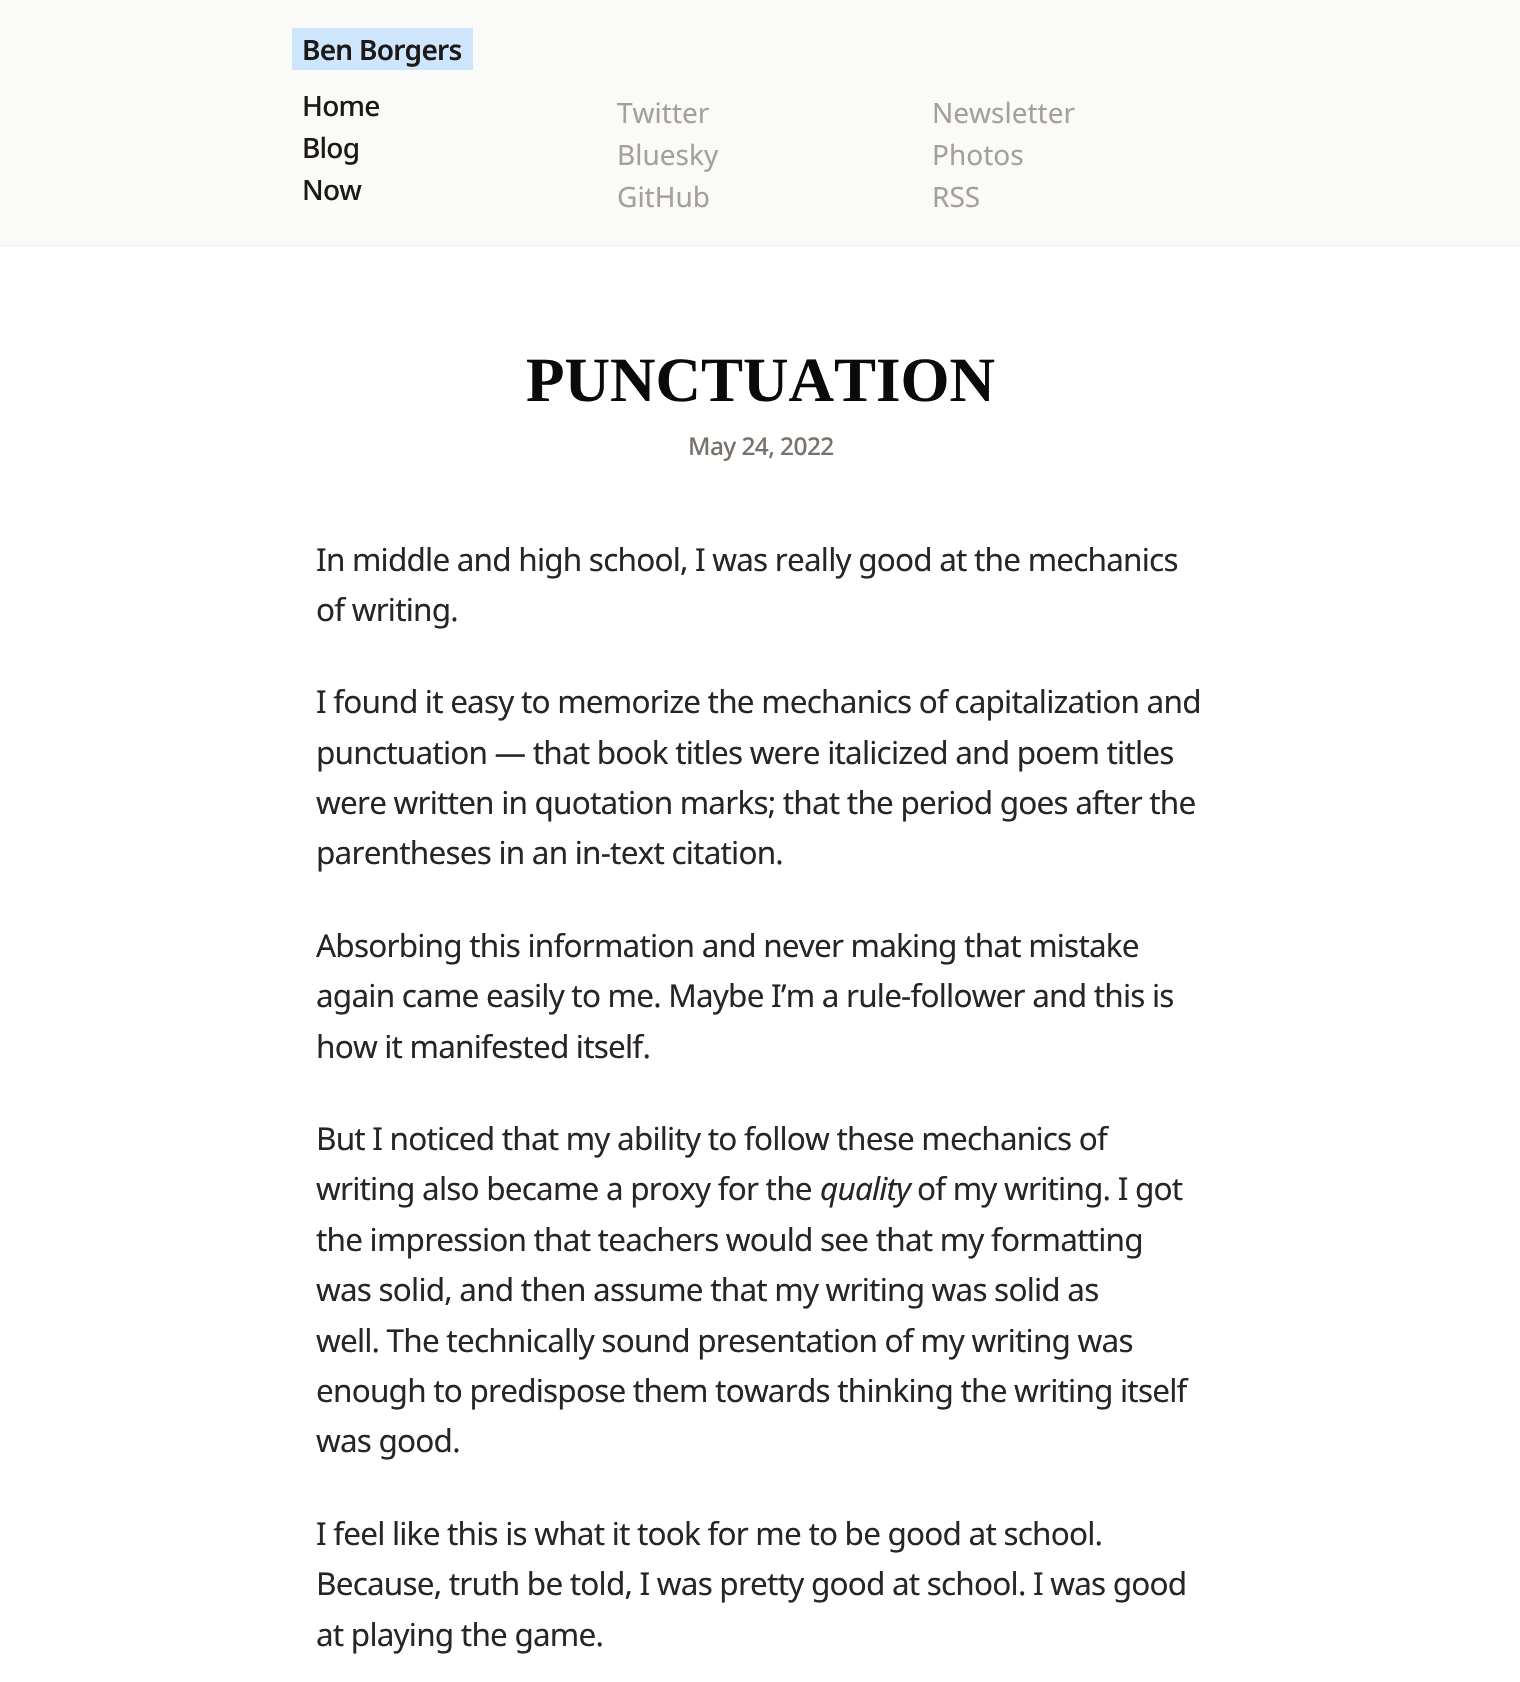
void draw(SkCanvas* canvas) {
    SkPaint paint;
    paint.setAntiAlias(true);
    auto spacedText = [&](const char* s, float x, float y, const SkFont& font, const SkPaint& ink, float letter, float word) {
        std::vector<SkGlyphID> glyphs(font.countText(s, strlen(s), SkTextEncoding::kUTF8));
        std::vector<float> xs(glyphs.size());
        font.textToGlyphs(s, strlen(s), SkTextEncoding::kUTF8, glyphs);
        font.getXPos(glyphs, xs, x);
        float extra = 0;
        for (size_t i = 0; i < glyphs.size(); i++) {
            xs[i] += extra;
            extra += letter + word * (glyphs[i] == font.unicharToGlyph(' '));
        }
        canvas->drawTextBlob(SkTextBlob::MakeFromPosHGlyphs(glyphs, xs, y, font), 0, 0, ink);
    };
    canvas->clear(0xFFFFFFFF);
    paint.setColor(0xFFFAFAF9);
    canvas->drawRect(SkRect::MakeXYWH(0, 0, 1520, 245), paint);
    paint.setColor(0xFFF5F5F4);
    canvas->drawRect(SkRect::MakeXYWH(0, 245, 1520, 2), paint);
    paint.setColor(0xFFCDE6FE);
    canvas->drawRect(SkRect::MakeXYWH(292, 28, 181, 42), paint);
    SkFont font1(fontMgr->matchFamilyStyle("Noto Sans", SkFontStyle(600, SkFontStyle::kNormal_Width, SkFontStyle::kUpright_Slant)), 28);
    font1.setSubpixel(true);
    paint.setColor(0xFF1C1917);
    spacedText("Ben Borgers", 302, 60, font1, paint, -0.75f, 0);
    SkFont font2(fontMgr->matchFamilyStyle("Noto Sans", SkFontStyle(500, SkFontStyle::kNormal_Width, SkFontStyle::kUpright_Slant)), 28);
    font2.setSubpixel(true);
    spacedText("Home", 302, 116, font2, paint, -0.75f, 0);
    spacedText("Blog", 302, 158, font2, paint, -0.75f, 0);
    spacedText("Now", 302, 200, font2, paint, -0.75f, 0);
    SkFont font3(fontMgr->matchFamilyStyle("Noto Sans", SkFontStyle::Normal()), 28);
    font3.setSubpixel(true);
    paint.setColor(0xFFA6A09B);
    canvas->drawString("Twitter", 617, 123, font3, paint);
    canvas->drawString("Bluesky", 617, 165, font3, paint);
    canvas->drawString("GitHub", 617, 207, font3, paint);
    canvas->drawString("Newsletter", 932, 123, font3, paint);
    canvas->drawString("Photos", 932, 165, font3, paint);
    canvas->drawString("RSS", 932, 207, font3, paint);
    SkFont font4(fontMgr->matchFamilyStyle("Liberation Serif", SkFontStyle::Bold()), 63);
    font4.setSubpixel(true);
    paint.setColor(0xFF0C0A09);
    canvas->drawString("PUNCTUATION", 526, 401, font4, paint);
    SkFont font5(fontMgr->matchFamilyStyle("Noto Sans", SkFontStyle(500, SkFontStyle::kNormal_Width, SkFontStyle::kUpright_Slant)), 24.5f);
    font5.setSubpixel(true);
    paint.setColor(0xFF79716B);
    spacedText("May 24, 2022", 688, 455, font5, paint, -0.6f, 0);
    SkFont font6(fontMgr->matchFamilyStyle("Noto Sans", SkFontStyle::Normal()), 31.5f);
    font6.setSubpixel(true);
    paint.setColor(0xFF292524);
    spacedText("In middle and high school, I was really good at the mechanics", 316, 571, font6, paint, -0.8f, 0);
    spacedText("of writing.", 316, 621, font6, paint, -0.8f, 0);
    spacedText("I found it easy to memorize the mechanics of capitalization and", 316, 713, font6, paint, -0.8f, 0);
    spacedText("punctuation — that book titles were italicized and poem titles", 316, 764, font6, paint, -0.8f, 0);
    spacedText("were written in quotation marks; that the period goes after the", 316, 814, font6, paint, -0.8f, 0);
    spacedText("parentheses in an in-text citation.", 316, 864, font6, paint, -0.8f, 0);
    spacedText("Absorbing this information and never making that mistake", 316, 957, font6, paint, -0.8f, 0);
    spacedText("again came easily to me. Maybe I’m a rule-follower and this is", 316, 1007, font6, paint, -0.8f, 0);
    spacedText("how it manifested itself.", 316, 1058, font6, paint, -0.8f, 0);
    spacedText("But I noticed that my ability to follow these mechanics of", 316, 1150, font6, paint, -0.8f, 0);
    spacedText("writing also became a proxy for the", 316, 1200, font6, paint, -0.8f, 0);
    SkFont font7(fontMgr->matchFamilyStyle("Noto Sans", SkFontStyle::Italic()), 31.5f);
    font7.setSubpixel(true);
    spacedText("quality", 820, 1200, font7, paint, -0.8f, 0);
    spacedText("of my writing. I got", 917, 1200, font6, paint, -0.8f, 0);
    spacedText("the impression that teachers would see that my formatting", 316, 1251, font6, paint, -0.8f, 0);
    spacedText("was solid, and then assume that my writing was solid as", 316, 1301, font6, paint, -0.8f, 0);
    spacedText("well. The technically sound presentation of my writing was", 316, 1352, font6, paint, -0.8f, 0);
    spacedText("enough to predispose them towards thinking the writing itself", 316, 1402, font6, paint, -0.8f, 0);
    spacedText("was good.", 316, 1452, font6, paint, -0.8f, 0);
    spacedText("I feel like this is what it took for me to be good at school.", 316, 1545, font6, paint, -0.8f, 0);
    spacedText("Because, truth be told, I was pretty good at school. I was good", 316, 1595, font6, paint, -0.8f, 0);
    spacedText("at playing the game.", 316, 1646, font6, paint, -0.8f, 0);
}
